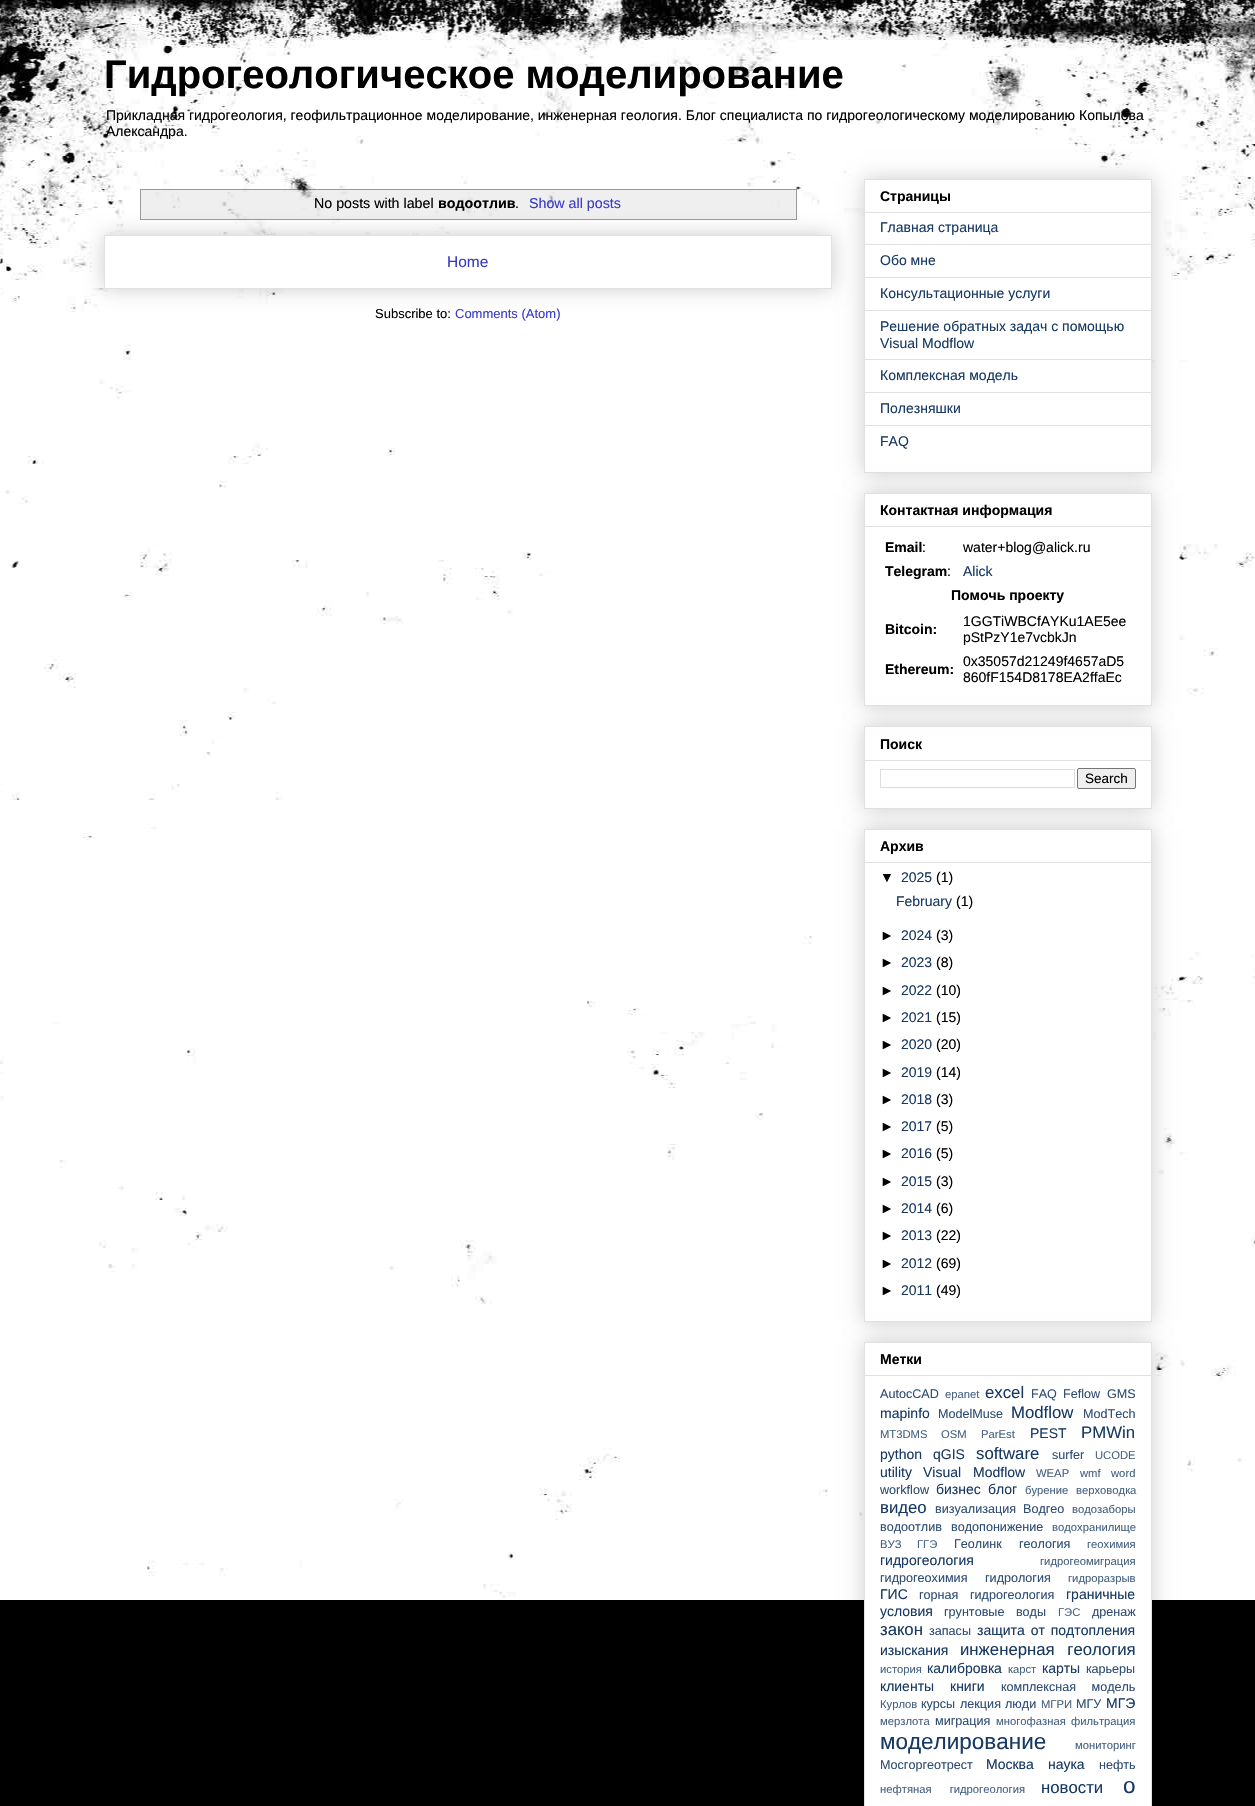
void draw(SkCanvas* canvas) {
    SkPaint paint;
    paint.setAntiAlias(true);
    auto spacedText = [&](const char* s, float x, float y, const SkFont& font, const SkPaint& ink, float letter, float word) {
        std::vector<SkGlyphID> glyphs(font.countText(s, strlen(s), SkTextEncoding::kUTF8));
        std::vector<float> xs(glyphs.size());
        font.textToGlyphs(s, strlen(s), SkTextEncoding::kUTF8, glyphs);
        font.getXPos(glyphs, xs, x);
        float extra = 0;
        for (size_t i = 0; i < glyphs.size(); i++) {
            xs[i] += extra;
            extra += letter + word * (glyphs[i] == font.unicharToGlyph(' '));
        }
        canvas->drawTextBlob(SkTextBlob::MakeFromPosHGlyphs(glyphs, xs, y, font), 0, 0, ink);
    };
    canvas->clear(0xFF000000);
    canvas->drawImageRect(SkImages::DeferredFromEncodedData(SkData::MakeFromFileName("img1.png")), SkRect::MakeXYWH(0, 0, 1255, 1600), SkSamplingOptions());
    SkFont font1(fontMgr->matchFamilyStyle("Liberation Sans", SkFontStyle::Bold()), 40);
    font1.setSubpixel(true);
    paint.setColor(0xFF000000);
    canvas->drawString("Гидрогеологическое моделирование", 104, 88, font1, paint);
    SkFont font2(fontMgr->matchFamilyStyle("Liberation Sans", SkFontStyle::Normal()), 14);
    font2.setSubpixel(true);
    canvas->drawString("Прикладная гидрогеология, геофильтрационное моделирование, инженерная геология. Блог специалиста по гидрогеологическому моделированию Копылова", 106, 120, font2, paint);
    canvas->drawString("Александра.", 106, 136, font2, paint);
    paint.setColor(0x33000000);
    paint.setMaskFilter(SkMaskFilter::MakeBlur(kNormal_SkBlurStyle, 10));
    canvas->drawRect(SkRect::MakeXYWH(104, 235, 728, 54), paint);
    paint.setMaskFilter(nullptr);
    paint.setStyle(SkPaint::kStroke_Style);
    paint.setStrokeWidth(1);
    paint.setColor(0x66000000);
    canvas->drawRect(SkRect::MakeXYWH(140.5f, 189.5f, 656, 30), paint);
    paint.setStyle(SkPaint::kFill_Style);
    paint.setColor(0x52CCCCCC);
    canvas->drawRect(SkRect::MakeXYWH(141, 190, 655, 29), paint);
    SkFont font3(fontMgr->matchFamilyStyle("Liberation Sans", SkFontStyle::Normal()), 14.25f);
    font3.setSubpixel(true);
    paint.setColor(0xFF000000);
    canvas->drawString("No posts with label", 314, 208, font3, paint);
    SkFont font4(fontMgr->matchFamilyStyle("Liberation Sans", SkFontStyle::Bold()), 14.25f);
    font4.setSubpixel(true);
    canvas->drawString("водоотлив", 438, 208, font4, paint);
    canvas->drawString(".", 515, 208, font3, paint);
    paint.setColor(0xFF3A3AC9);
    canvas->drawString("Show all posts", 529, 208, font3, paint);
    paint.setColor(0xFFFFFFFF);
    canvas->drawRect(SkRect::MakeXYWH(104.5f, 235.5f, 727, 53), paint);
    paint.setStyle(SkPaint::kStroke_Style);
    paint.setColor(0xFFE1E1E1);
    canvas->drawRect(SkRect::MakeXYWH(104.5f, 235.5f, 727, 53), paint);
    SkFont font5(fontMgr->matchFamilyStyle("Liberation Sans", SkFontStyle::Normal()), 15.5f);
    font5.setSubpixel(true);
    paint.setStyle(SkPaint::kFill_Style);
    paint.setColor(0xFF3A3AC9);
    canvas->drawString("Home", 447, 267, font5, paint);
    SkFont font6(fontMgr->matchFamilyStyle("Liberation Sans", SkFontStyle::Normal()), 13);
    font6.setSubpixel(true);
    paint.setColor(0xFF000000);
    canvas->drawString("Subscribe to:", 375, 318, font6, paint);
    paint.setColor(0xFF3A3AC9);
    canvas->drawString("Comments (Atom)", 455, 318, font6, paint);
    paint.setColor(0x33000000);
    paint.setMaskFilter(SkMaskFilter::MakeBlur(kNormal_SkBlurStyle, 10));
    canvas->drawRect(SkRect::MakeXYWH(864, 179, 288, 294), paint);
    paint.setMaskFilter(nullptr);
    paint.setColor(0xFFFFFFFF);
    canvas->drawRect(SkRect::MakeXYWH(864.5f, 179.5f, 287, 293), paint);
    paint.setStyle(SkPaint::kStroke_Style);
    paint.setColor(0xFFE1E1E1);
    canvas->drawRect(SkRect::MakeXYWH(864.5f, 179.5f, 287, 293), paint);
    SkFont font7(fontMgr->matchFamilyStyle("Liberation Sans", SkFontStyle::Bold()), 14);
    font7.setSubpixel(true);
    paint.setStyle(SkPaint::kFill_Style);
    paint.setColor(0xFF000000);
    canvas->drawString("Страницы", 880, 201, font7, paint);
    paint.setColor(0xFFE1E1E1);
    canvas->drawRect(SkRect::MakeXYWH(865, 212, 286, 1), paint);
    paint.setColor(0xFF183963);
    canvas->drawString("Главная страница", 880, 232, font2, paint);
    paint.setColor(0xFFE1E1E1);
    canvas->drawRect(SkRect::MakeXYWH(865, 244, 286, 1), paint);
    paint.setColor(0xFF183963);
    canvas->drawString("Обо мне", 880, 265, font2, paint);
    paint.setColor(0xFFE1E1E1);
    canvas->drawRect(SkRect::MakeXYWH(865, 277, 286, 1), paint);
    paint.setColor(0xFF183963);
    canvas->drawString("Консультационные услуги", 880, 298, font2, paint);
    paint.setColor(0xFFE1E1E1);
    canvas->drawRect(SkRect::MakeXYWH(865, 310, 286, 1), paint);
    paint.setColor(0xFF183963);
    canvas->drawString("Решение обратных задач с помощью", 880, 331, font2, paint);
    canvas->drawString("Visual Modflow", 880, 348, font2, paint);
    paint.setColor(0xFFE1E1E1);
    canvas->drawRect(SkRect::MakeXYWH(865, 359, 286, 1), paint);
    paint.setColor(0xFF183963);
    canvas->drawString("Комплексная модель", 880, 380, font2, paint);
    paint.setColor(0xFFE1E1E1);
    canvas->drawRect(SkRect::MakeXYWH(865, 392, 286, 1), paint);
    paint.setColor(0xFF183963);
    canvas->drawString("Полезняшки", 880, 413, font2, paint);
    paint.setColor(0xFFE1E1E1);
    canvas->drawRect(SkRect::MakeXYWH(865, 425, 286, 1), paint);
    paint.setColor(0xFF183963);
    canvas->drawString("FAQ", 880, 446, font2, paint);
    paint.setColor(0x33000000);
    paint.setMaskFilter(SkMaskFilter::MakeBlur(kNormal_SkBlurStyle, 10));
    canvas->drawRect(SkRect::MakeXYWH(864, 493, 288, 213), paint);
    paint.setMaskFilter(nullptr);
    paint.setColor(0xFFFFFFFF);
    canvas->drawRect(SkRect::MakeXYWH(864.5f, 493.5f, 287, 212), paint);
    paint.setStyle(SkPaint::kStroke_Style);
    paint.setColor(0xFFE1E1E1);
    canvas->drawRect(SkRect::MakeXYWH(864.5f, 493.5f, 287, 212), paint);
    paint.setStyle(SkPaint::kFill_Style);
    paint.setColor(0xFF000000);
    canvas->drawString("Контактная информация", 880, 515, font7, paint);
    paint.setColor(0xFFE1E1E1);
    canvas->drawRect(SkRect::MakeXYWH(865, 526, 286, 1), paint);
    paint.setColor(0xFF000000);
    canvas->drawString("Email", 885, 552, font7, paint);
    canvas->drawString(":", 922, 552, font2, paint);
    canvas->drawString("water+blog@alick.ru", 963, 552, font2, paint);
    canvas->drawString("Telegram", 885, 576, font7, paint);
    canvas->drawString(":", 947, 576, font2, paint);
    paint.setColor(0xFF183963);
    canvas->drawString("Alick", 963, 576, font2, paint);
    paint.setColor(0xFF000000);
    canvas->drawString("Помочь проекту", 951, 600, font7, paint);
    canvas->drawString("Bitcoin:", 885, 634, font7, paint);
    canvas->drawString("1GGTiWBCfAYKu1AE5ee", 963, 626, font2, paint);
    canvas->drawString("pStPzY1e7vcbkJn", 963, 642, font2, paint);
    canvas->drawString("Ethereum:", 885, 674, font7, paint);
    canvas->drawString("0x35057d21249f4657aD5", 963, 666, font2, paint);
    canvas->drawString("860fF154D8178EA2ffaEc", 963, 682, font2, paint);
    canvas->save();
    canvas->clipPath(SkPathBuilder(SkPathFillType::kEvenOdd).moveTo(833, 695).lineTo(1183, 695).lineTo(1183, 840).lineTo(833, 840).close().moveTo(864, 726).lineTo(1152, 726).lineTo(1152, 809).lineTo(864, 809).close().detach(), true);
    paint.setColor(0x33000000);
    paint.setMaskFilter(SkMaskFilter::MakeBlur(kNormal_SkBlurStyle, 10));
    canvas->drawRect(SkRect::MakeXYWH(864, 726, 288, 83), paint);
    paint.setMaskFilter(nullptr);
    canvas->restore();
    paint.setStyle(SkPaint::kStroke_Style);
    paint.setColor(0xFFE1E1E1);
    canvas->drawRect(SkRect::MakeXYWH(864.5f, 726.5f, 287, 82), paint);
    paint.setStyle(SkPaint::kFill_Style);
    paint.setColor(0xFF000000);
    canvas->drawString("Поиск", 880, 749, font7, paint);
    paint.setColor(0xFFE1E1E1);
    canvas->drawRect(SkRect::MakeXYWH(865, 760, 286, 1), paint);
    paint.setStyle(SkPaint::kStroke_Style);
    paint.setColor(0xFFDDDDDD);
    canvas->drawRect(SkRect::MakeXYWH(880.5f, 769.5f, 194, 18), paint);
    paint.setStyle(SkPaint::kFill_Style);
    paint.setColor(0xFFEFEFEF);
    canvas->drawRoundRect(SkRect::MakeXYWH(1077.5f, 768.5f, 58, 20), 1.5f, 1.5f, paint);
    paint.setStyle(SkPaint::kStroke_Style);
    paint.setColor(0xFF767676);
    canvas->drawRoundRect(SkRect::MakeXYWH(1077.5f, 768.5f, 58, 20), 1.5f, 1.5f, paint);
    SkFont font8(fontMgr->matchFamilyStyle("Liberation Sans", SkFontStyle::Normal()), 13.5f);
    font8.setSubpixel(true);
    paint.setStyle(SkPaint::kFill_Style);
    paint.setColor(0xFF000000);
    canvas->drawString("Search", 1085, 783, font8, paint);
    paint.setColor(0x33000000);
    paint.setMaskFilter(SkMaskFilter::MakeBlur(kNormal_SkBlurStyle, 10));
    canvas->drawRect(SkRect::MakeXYWH(864, 829, 288, 493), paint);
    paint.setMaskFilter(nullptr);
    paint.setColor(0xFFFFFFFF);
    canvas->drawRect(SkRect::MakeXYWH(864.5f, 829.5f, 287, 492), paint);
    paint.setStyle(SkPaint::kStroke_Style);
    paint.setColor(0xFFE1E1E1);
    canvas->drawRect(SkRect::MakeXYWH(864.5f, 829.5f, 287, 492), paint);
    paint.setStyle(SkPaint::kFill_Style);
    paint.setColor(0xFF000000);
    canvas->drawString("Архив", 880, 851, font7, paint);
    paint.setColor(0xFFE1E1E1);
    canvas->drawRect(SkRect::MakeXYWH(865, 862, 286, 1), paint);
    paint.setColor(0xFF000000);
    canvas->drawString("▼", 880, 882, font2, paint);
    paint.setColor(0xFF183963);
    canvas->drawString("2025", 901, 882, font2, paint);
    paint.setColor(0xFF000000);
    canvas->drawString("(1)", 936, 882, font2, paint);
    paint.setColor(0xFF183963);
    canvas->drawString("February", 896, 906, font2, paint);
    paint.setColor(0xFF000000);
    canvas->drawString("(1)", 956, 906, font2, paint);
    canvas->drawString("►", 880, 940, font2, paint);
    paint.setColor(0xFF183963);
    canvas->drawString("2024", 901, 940, font2, paint);
    paint.setColor(0xFF000000);
    canvas->drawString("(3)", 936, 940, font2, paint);
    canvas->drawString("►", 880, 967, font2, paint);
    paint.setColor(0xFF183963);
    canvas->drawString("2023", 901, 967, font2, paint);
    paint.setColor(0xFF000000);
    canvas->drawString("(8)", 936, 967, font2, paint);
    canvas->drawString("►", 880, 995, font2, paint);
    paint.setColor(0xFF183963);
    canvas->drawString("2022", 901, 995, font2, paint);
    paint.setColor(0xFF000000);
    canvas->drawString("(10)", 936, 995, font2, paint);
    canvas->drawString("►", 880, 1022, font2, paint);
    paint.setColor(0xFF183963);
    canvas->drawString("2021", 901, 1022, font2, paint);
    paint.setColor(0xFF000000);
    canvas->drawString("(15)", 936, 1022, font2, paint);
    canvas->drawString("►", 880, 1049, font2, paint);
    paint.setColor(0xFF183963);
    canvas->drawString("2020", 901, 1049, font2, paint);
    paint.setColor(0xFF000000);
    canvas->drawString("(20)", 936, 1049, font2, paint);
    canvas->drawString("►", 880, 1077, font2, paint);
    paint.setColor(0xFF183963);
    canvas->drawString("2019", 901, 1077, font2, paint);
    paint.setColor(0xFF000000);
    canvas->drawString("(14)", 936, 1077, font2, paint);
    canvas->drawString("►", 880, 1104, font2, paint);
    paint.setColor(0xFF183963);
    canvas->drawString("2018", 901, 1104, font2, paint);
    paint.setColor(0xFF000000);
    canvas->drawString("(3)", 936, 1104, font2, paint);
    canvas->drawString("►", 880, 1131, font2, paint);
    paint.setColor(0xFF183963);
    canvas->drawString("2017", 901, 1131, font2, paint);
    paint.setColor(0xFF000000);
    canvas->drawString("(5)", 936, 1131, font2, paint);
    canvas->drawString("►", 880, 1158, font2, paint);
    paint.setColor(0xFF183963);
    canvas->drawString("2016", 901, 1158, font2, paint);
    paint.setColor(0xFF000000);
    canvas->drawString("(5)", 936, 1158, font2, paint);
    canvas->drawString("►", 880, 1186, font2, paint);
    paint.setColor(0xFF183963);
    canvas->drawString("2015", 901, 1186, font2, paint);
    paint.setColor(0xFF000000);
    canvas->drawString("(3)", 936, 1186, font2, paint);
    canvas->drawString("►", 880, 1213, font2, paint);
    paint.setColor(0xFF183963);
    canvas->drawString("2014", 901, 1213, font2, paint);
    paint.setColor(0xFF000000);
    canvas->drawString("(6)", 936, 1213, font2, paint);
    canvas->drawString("►", 880, 1240, font2, paint);
    paint.setColor(0xFF183963);
    canvas->drawString("2013", 901, 1240, font2, paint);
    paint.setColor(0xFF000000);
    canvas->drawString("(22)", 936, 1240, font2, paint);
    canvas->drawString("►", 880, 1268, font2, paint);
    paint.setColor(0xFF183963);
    canvas->drawString("2012", 901, 1268, font2, paint);
    paint.setColor(0xFF000000);
    canvas->drawString("(69)", 936, 1268, font2, paint);
    canvas->drawString("►", 880, 1295, font2, paint);
    paint.setColor(0xFF183963);
    canvas->drawString("2011", 901, 1295, font2, paint);
    paint.setColor(0xFF000000);
    canvas->drawString("(49)", 936, 1295, font2, paint);
    paint.setColor(0x33000000);
    paint.setMaskFilter(SkMaskFilter::MakeBlur(kNormal_SkBlurStyle, 10));
    canvas->drawRect(SkRect::MakeXYWH(864, 1342, 288, 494), paint);
    paint.setMaskFilter(nullptr);
    paint.setColor(0xFFFFFFFF);
    canvas->drawRect(SkRect::MakeXYWH(864.5f, 1342.5f, 287, 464), paint);
    paint.setStyle(SkPaint::kStroke_Style);
    paint.setColor(0xFFE1E1E1);
    canvas->drawRect(SkRect::MakeXYWH(864.5f, 1342.5f, 287, 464), paint);
    paint.setStyle(SkPaint::kFill_Style);
    paint.setColor(0xFF000000);
    canvas->drawString("Метки", 880, 1364, font7, paint);
    paint.setColor(0xFFE1E1E1);
    canvas->drawRect(SkRect::MakeXYWH(865, 1375, 286, 1), paint);
    SkFont font9(fontMgr->matchFamilyStyle("Liberation Sans", SkFontStyle::Normal()), 12.6f);
    font9.setSubpixel(true);
    paint.setColor(0xFF2F4D73);
    canvas->drawString("AutocCAD", 880, 1398, font9, paint);
    SkFont font10(fontMgr->matchFamilyStyle("Liberation Sans", SkFontStyle::Normal()), 11.25f);
    font10.setSubpixel(true);
    paint.setColor(0xFF466182);
    canvas->drawString("epanet", 945, 1398, font10, paint);
    SkFont font11(fontMgr->matchFamilyStyle("Liberation Sans", SkFontStyle::Normal()), 16.75f);
    font11.setSubpixel(true);
    paint.setColor(0xFF183963);
    canvas->drawString("excel", 985, 1398, font11, paint);
    paint.setColor(0xFF2F4D73);
    canvas->drawString("FAQ", 1031, 1398, font9, paint);
    canvas->drawString("Feflow", 1063, 1398, font9, paint);
    canvas->drawString("GMS", 1107, 1398, font9, paint);
    paint.setColor(0xFF183963);
    canvas->drawString("mapinfo", 880, 1418, font2, paint);
    paint.setColor(0xFF2F4D73);
    canvas->drawString("ModelMuse", 938, 1418, font9, paint);
    paint.setColor(0xFF183963);
    canvas->drawString("Modflow", 1011, 1418, font11, paint);
    paint.setColor(0xFF2F4D73);
    canvas->drawString("ModTech", 1083, 1418, font9, paint);
    paint.setColor(0xFF466182);
    canvas->drawString("MT3DMS", 880, 1438, font10, paint);
    canvas->drawString("OSM", 941, 1438, font10, paint);
    canvas->drawString("ParEst", 981, 1438, font10, paint);
    paint.setColor(0xFF183963);
    canvas->drawString("PEST", 1030, 1438, font2, paint);
    canvas->drawString("PMWin", 1081, 1438, font11, paint);
    canvas->drawString("python", 880, 1459, font2, paint);
    canvas->drawString("qGIS", 933, 1459, font2, paint);
    canvas->drawString("software", 976, 1459, font11, paint);
    paint.setColor(0xFF2F4D73);
    canvas->drawString("surfer", 1052, 1459, font9, paint);
    paint.setColor(0xFF466182);
    canvas->drawString("UCODE", 1095, 1459, font10, paint);
    paint.setColor(0xFF183963);
    canvas->drawString("utility", 880, 1477, font2, paint);
    spacedText("Visual Modflow", 923, 1477, font2, paint, 0, 8);
    paint.setColor(0xFF466182);
    canvas->drawString("WEAP", 1036, 1477, font10, paint);
    canvas->drawString("wmf", 1080, 1477, font10, paint);
    canvas->drawString("word", 1111, 1477, font10, paint);
    paint.setColor(0xFF2F4D73);
    canvas->drawString("workflow", 880, 1494, font9, paint);
    paint.setColor(0xFF183963);
    canvas->drawString("бизнес", 936, 1494, font2, paint);
    canvas->drawString("блог", 988, 1494, font2, paint);
    paint.setColor(0xFF466182);
    canvas->drawString("бурение", 1025, 1494, font10, paint);
    canvas->drawString("верховодка", 1076, 1494, font10, paint);
    paint.setColor(0xFF183963);
    canvas->drawString("видео", 880, 1513, font11, paint);
    paint.setColor(0xFF2F4D73);
    canvas->drawString("визуализация", 935, 1513, font9, paint);
    canvas->drawString("Водгео", 1023, 1513, font9, paint);
    paint.setColor(0xFF466182);
    canvas->drawString("водозаборы", 1072, 1513, font10, paint);
    paint.setColor(0xFF2F4D73);
    canvas->drawString("водоотлив", 880, 1531, font9, paint);
    canvas->drawString("водопонижение", 951, 1531, font9, paint);
    paint.setColor(0xFF466182);
    canvas->drawString("водохранилище", 1052, 1531, font10, paint);
    canvas->drawString("ВУЗ", 880, 1548, font10, paint);
    canvas->drawString("ГГЭ", 917, 1548, font10, paint);
    paint.setColor(0xFF2F4D73);
    canvas->drawString("Геолинк", 954, 1548, font9, paint);
    canvas->drawString("геология", 1019, 1548, font9, paint);
    paint.setColor(0xFF466182);
    canvas->drawString("геохимия", 1087, 1548, font10, paint);
    paint.setColor(0xFF183963);
    canvas->drawString("гидрогеология", 880, 1565, font2, paint);
    paint.setColor(0xFF466182);
    canvas->drawString("гидрогеомиграция", 1040, 1565, font10, paint);
    paint.setColor(0xFF2F4D73);
    canvas->drawString("гидрогеохимия", 880, 1582, font9, paint);
    canvas->drawString("гидрология", 985, 1582, font9, paint);
    paint.setColor(0xFF466182);
    canvas->drawString("гидроразрыв", 1068, 1582, font10, paint);
    paint.setColor(0xFF183963);
    canvas->drawString("ГИС", 880, 1599, font2, paint);
    paint.setColor(0xFF2F4D73);
    spacedText("горная гидрогеология", 919, 1599, font9, paint, 0, 8);
    paint.setColor(0xFF183963);
    canvas->drawString("граничные", 1066, 1599, font2, paint);
    canvas->drawString("условия", 880, 1616, font2, paint);
    paint.setColor(0xFF2F4D73);
    spacedText("грунтовые воды", 944, 1616, font9, paint, 0, 8);
    paint.setColor(0xFF466182);
    canvas->drawString("ГЭС", 1058, 1616, font10, paint);
    paint.setColor(0xFF2F4D73);
    canvas->drawString("дренаж", 1092, 1616, font9, paint);
    paint.setColor(0xFF183963);
    canvas->drawString("закон", 880, 1635, font11, paint);
    paint.setColor(0xFF2F4D73);
    canvas->drawString("запасы", 929, 1635, font9, paint);
    paint.setColor(0xFF183963);
    spacedText("защита от подтопления", 977, 1635, font2, paint, 0, 2);
    canvas->drawString("изыскания", 880, 1655, font2, paint);
    spacedText("инженерная геология", 960, 1655, font11, paint, 0, 8);
    paint.setColor(0xFF466182);
    canvas->drawString("история", 880, 1673, font10, paint);
    paint.setColor(0xFF183963);
    canvas->drawString("калибровка", 927, 1673, font2, paint);
    paint.setColor(0xFF466182);
    canvas->drawString("карст", 1008, 1673, font10, paint);
    paint.setColor(0xFF183963);
    canvas->drawString("карты", 1042, 1673, font2, paint);
    paint.setColor(0xFF2F4D73);
    canvas->drawString("карьеры", 1086, 1673, font9, paint);
    paint.setColor(0xFF183963);
    canvas->drawString("клиенты", 880, 1691, font2, paint);
    canvas->drawString("книги", 950, 1691, font2, paint);
    paint.setColor(0xFF2F4D73);
    spacedText("комплексная модель", 1001, 1691, font9, paint, 0, 12);
    paint.setColor(0xFF466182);
    canvas->drawString("Курлов", 880, 1708, font10, paint);
    paint.setColor(0xFF2F4D73);
    canvas->drawString("курсы", 921, 1708, font9, paint);
    canvas->drawString("лекция", 960, 1708, font9, paint);
    canvas->drawString("люди", 1005, 1708, font9, paint);
    paint.setColor(0xFF466182);
    canvas->drawString("МГРИ", 1041, 1708, font10, paint);
    paint.setColor(0xFF2F4D73);
    canvas->drawString("МГУ", 1076, 1708, font9, paint);
    paint.setColor(0xFF183963);
    canvas->drawString("МГЭ", 1106, 1708, font2, paint);
    paint.setColor(0xFF466182);
    canvas->drawString("мерзлота", 880, 1725, font10, paint);
    paint.setColor(0xFF2F4D73);
    canvas->drawString("миграция", 935, 1725, font9, paint);
    paint.setColor(0xFF466182);
    spacedText("многофазная фильтрация", 996, 1725, font10, paint, 0, 2);
    SkFont font12(fontMgr->matchFamilyStyle("Liberation Sans", SkFontStyle::Normal()), 22.5f);
    font12.setSubpixel(true);
    paint.setColor(0xFF183963);
    canvas->drawString("моделирование", 880, 1749, font12, paint);
    paint.setColor(0xFF466182);
    canvas->drawString("мониторинг", 1075, 1749, font10, paint);
    paint.setColor(0xFF2F4D73);
    canvas->drawString("Мосгоргеотрест", 880, 1769, font9, paint);
    paint.setColor(0xFF183963);
    canvas->drawString("Москва", 986, 1769, font2, paint);
    canvas->drawString("наука", 1048, 1769, font2, paint);
    paint.setColor(0xFF2F4D73);
    canvas->drawString("нефть", 1099, 1769, font9, paint);
    paint.setColor(0xFF466182);
    spacedText("нефтяная гидрогеология", 880, 1793, font10, paint, 0, 15);
    paint.setColor(0xFF183963);
    canvas->drawString("новости", 1041, 1793, font11, paint);
    canvas->drawString("о", 1123, 1793, font12, paint);
}
